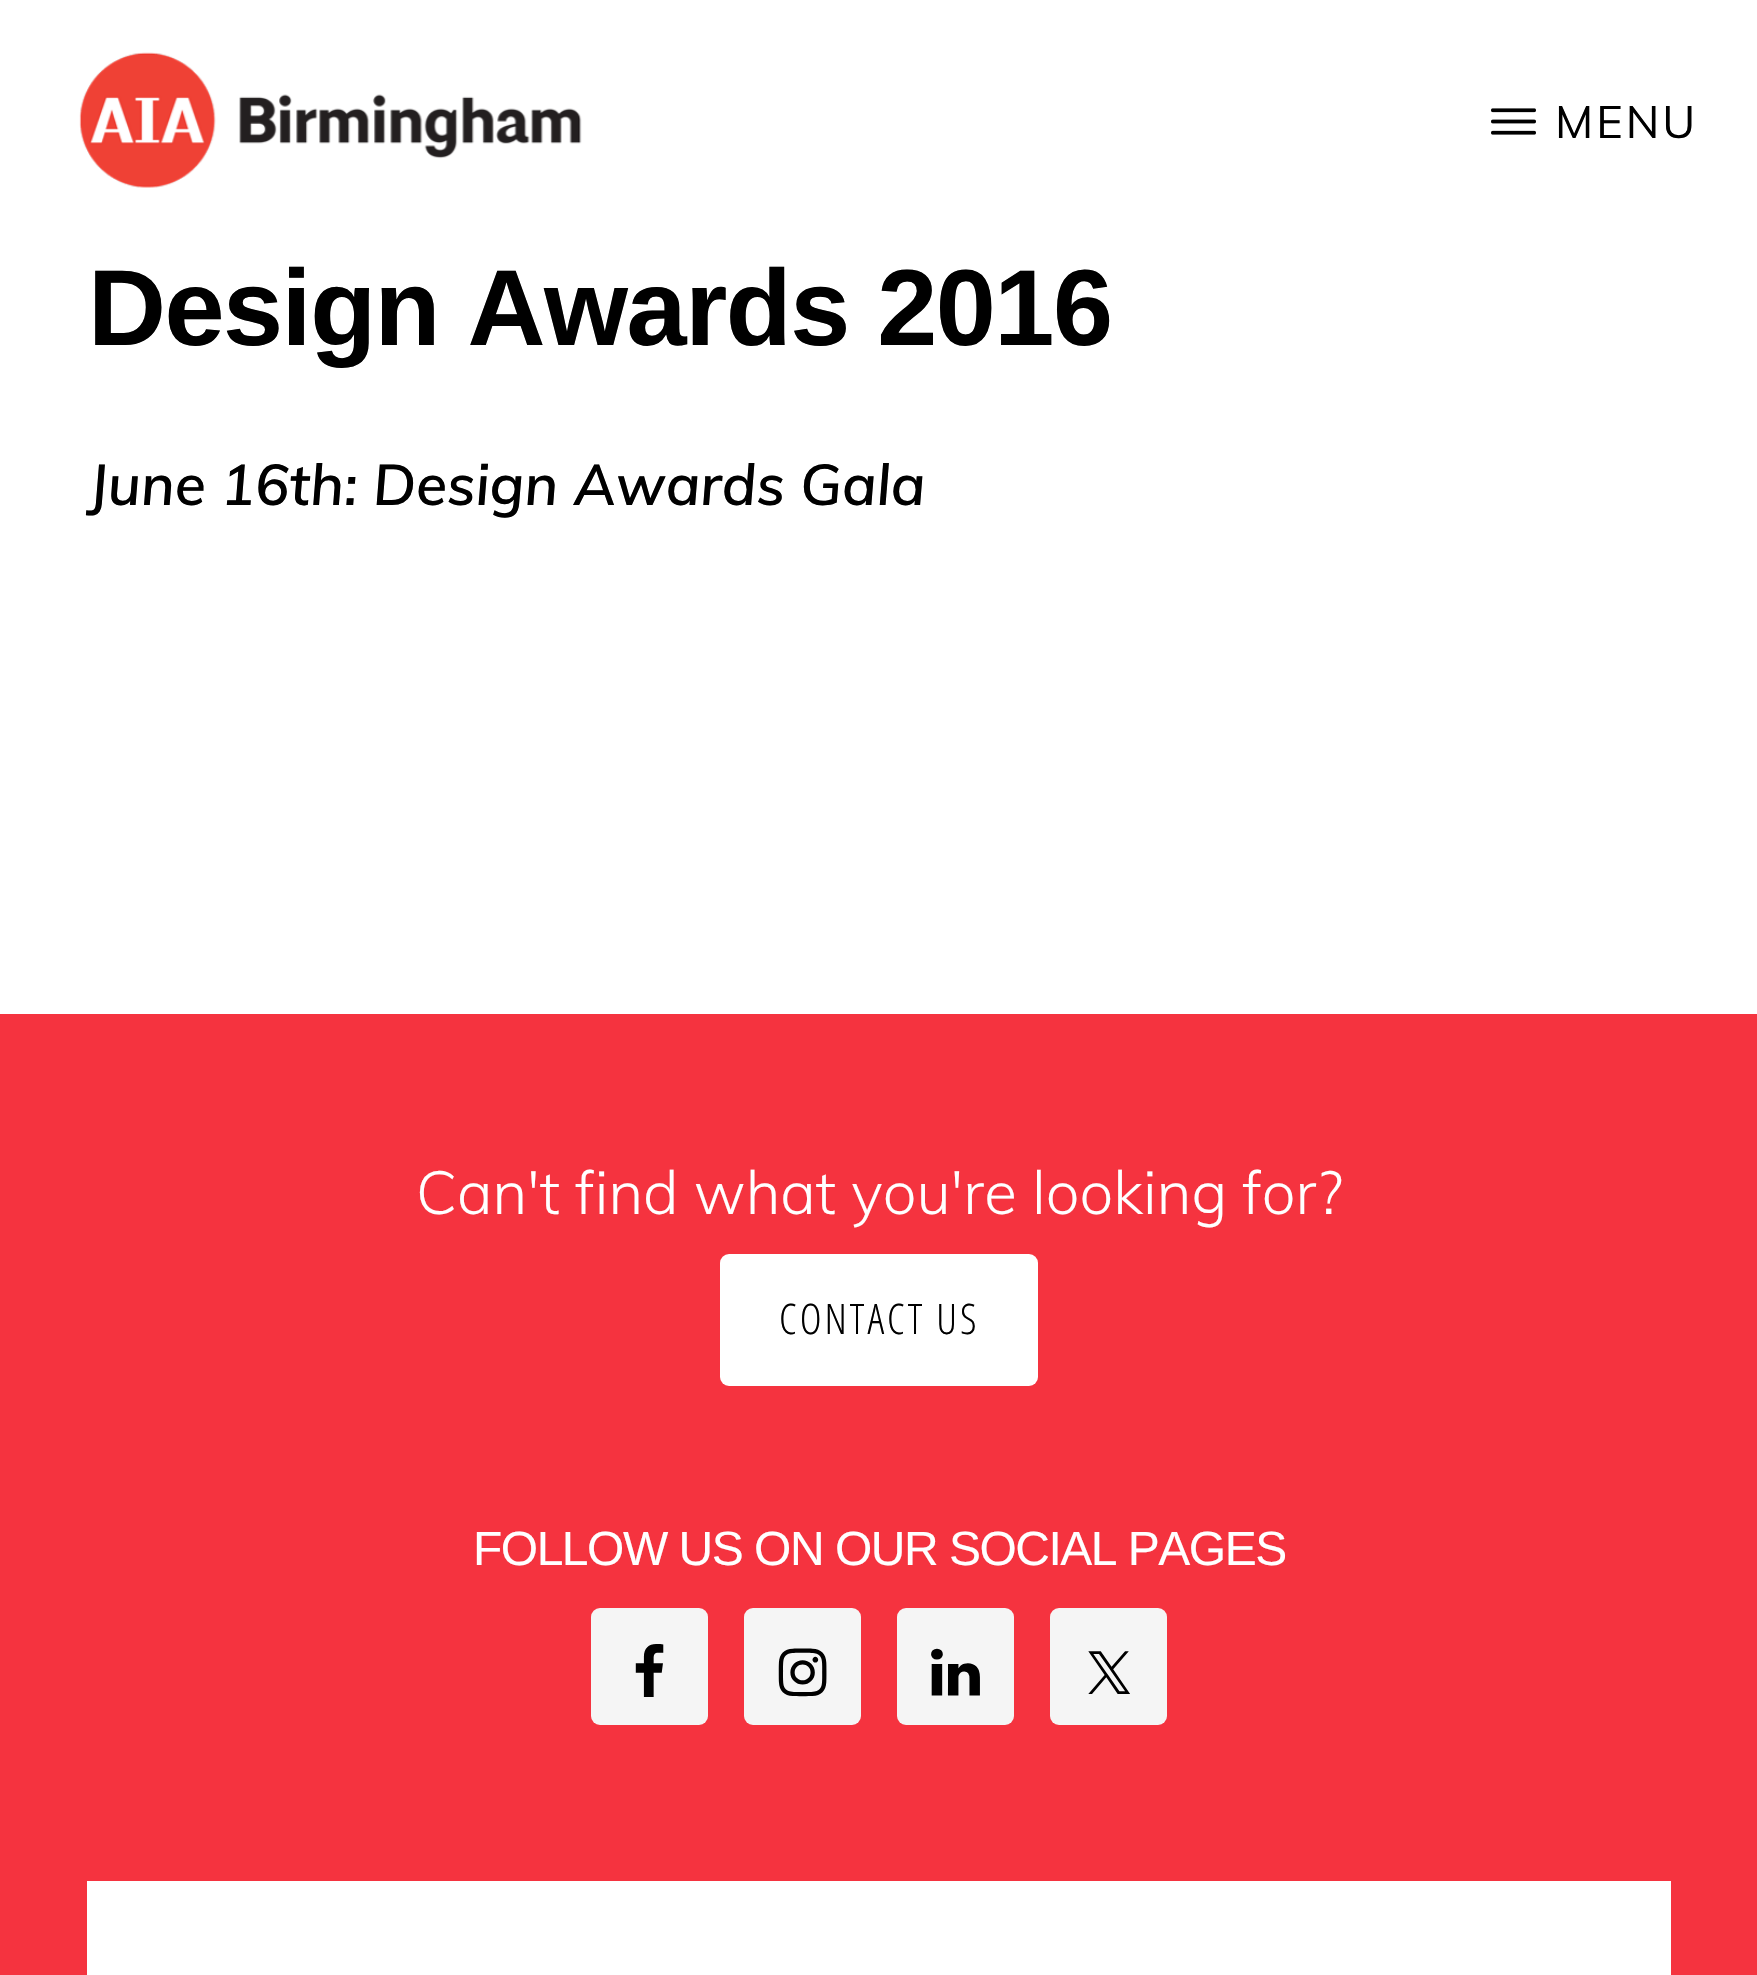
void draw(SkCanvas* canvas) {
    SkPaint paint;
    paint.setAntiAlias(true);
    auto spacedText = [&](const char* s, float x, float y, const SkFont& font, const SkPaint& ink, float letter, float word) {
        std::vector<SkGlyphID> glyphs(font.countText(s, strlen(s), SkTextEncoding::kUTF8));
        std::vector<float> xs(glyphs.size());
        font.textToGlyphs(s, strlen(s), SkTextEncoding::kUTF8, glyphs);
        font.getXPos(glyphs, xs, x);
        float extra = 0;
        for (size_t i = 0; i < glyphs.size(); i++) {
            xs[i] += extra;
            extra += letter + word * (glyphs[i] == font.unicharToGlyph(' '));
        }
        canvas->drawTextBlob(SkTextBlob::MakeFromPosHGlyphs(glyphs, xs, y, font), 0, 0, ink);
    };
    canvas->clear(0xFFFFFFFF);
    canvas->drawImageRect(SkImages::DeferredFromEncodedData(SkData::MakeFromFileName("img1.png")), SkRect::MakeXYWH(79, 52, 503, 136), SkSamplingOptions());
    canvas->drawImageRect(SkImages::DeferredFromEncodedData(SkData::MakeFromFileName("img2.png")), SkRect::MakeXYWH(1491, 108, 45, 27), SkSamplingOptions());
    SkFont font1(fontMgr->matchFamilyStyle("Muli", SkFontStyle::Normal()), 45);
    font1.setSubpixel(true);
    paint.setColor(0xFF000000);
    spacedText("MENU", 1555, 138, font1, paint, 3, 0);
    SkFont font2(fontMgr->matchFamilyStyle("Liberation Sans", SkFontStyle::Bold()), 108);
    font2.setSubpixel(true);
    spacedText("Design Awards 2016", 88, 345, font2, paint, -1.5f, 0);
    SkFont font3(fontMgr->matchFamilyStyle("Muli", SkFontStyle(600, SkFontStyle::kNormal_Width, SkFontStyle::kItalic_Slant)), 57);
    font3.setSubpixel(true);
    canvas->drawString("June 16th: Design Awards Gala", 88, 505, font3, paint);
    paint.setColor(0xFFF5333F);
    canvas->drawRect(SkRect::MakeXYWH(0, 1014, 1757, 961), paint);
    SkFont font4(fontMgr->matchFamilyStyle("Muli", SkFontStyle(300, SkFontStyle::kNormal_Width, SkFontStyle::kUpright_Slant)), 60);
    font4.setSubpixel(true);
    paint.setColor(0xFFFFFFFF);
    canvas->drawString("Can't find what you're looking for?", 416, 1214, font4, paint);
    canvas->drawRoundRect(SkRect::MakeXYWH(720, 1254, 318, 132), 9, 9, paint);
    SkFont font5(fontMgr->matchFamilyStyle("Open Sans Condensed", SkFontStyle(300, SkFontStyle::kNormal_Width, SkFontStyle::kUpright_Slant)), 42);
    font5.setSubpixel(true);
    paint.setColor(0xFF000000);
    spacedText("CONTACT US", 779, 1334, font5, paint, 3, 0);
    SkFont font6(fontMgr->matchFamilyStyle("Liberation Sans", SkFontStyle::Normal()), 48);
    font6.setSubpixel(true);
    paint.setColor(0xFFFFFFFF);
    spacedText("FOLLOW US ON OUR SOCIAL PAGES", 473, 1565, font6, paint, -1.5f, 0);
    paint.setColor(0xFFF5F5F5);
    canvas->drawRoundRect(SkRect::MakeXYWH(591, 1608, 117, 117), 9, 9, paint);
    canvas->drawImageRect(SkImages::DeferredFromEncodedData(SkData::MakeFromFileName("img3.png")), SkRect::MakeXYWH(635, 1644, 29, 53), SkSamplingOptions());
    canvas->drawRoundRect(SkRect::MakeXYWH(744, 1608, 117, 117), 9, 9, paint);
    canvas->drawImageRect(SkImages::DeferredFromEncodedData(SkData::MakeFromFileName("img4.png")), SkRect::MakeXYWH(778, 1648, 49, 49), SkSamplingOptions());
    canvas->drawRoundRect(SkRect::MakeXYWH(897, 1608, 117, 117), 9, 9, paint);
    canvas->drawImageRect(SkImages::DeferredFromEncodedData(SkData::MakeFromFileName("img5.png")), SkRect::MakeXYWH(931, 1648, 49, 48), SkSamplingOptions());
    canvas->drawRoundRect(SkRect::MakeXYWH(1050, 1608, 117, 117), 9, 9, paint);
    canvas->drawImageRect(SkImages::DeferredFromEncodedData(SkData::MakeFromFileName("img6.png")), SkRect::MakeXYWH(1088, 1651, 42, 43), SkSamplingOptions());
    paint.setColor(0xFFFFFFFF);
    canvas->drawRect(SkRect::MakeXYWH(87, 1881, 1584, 94), paint);
}
